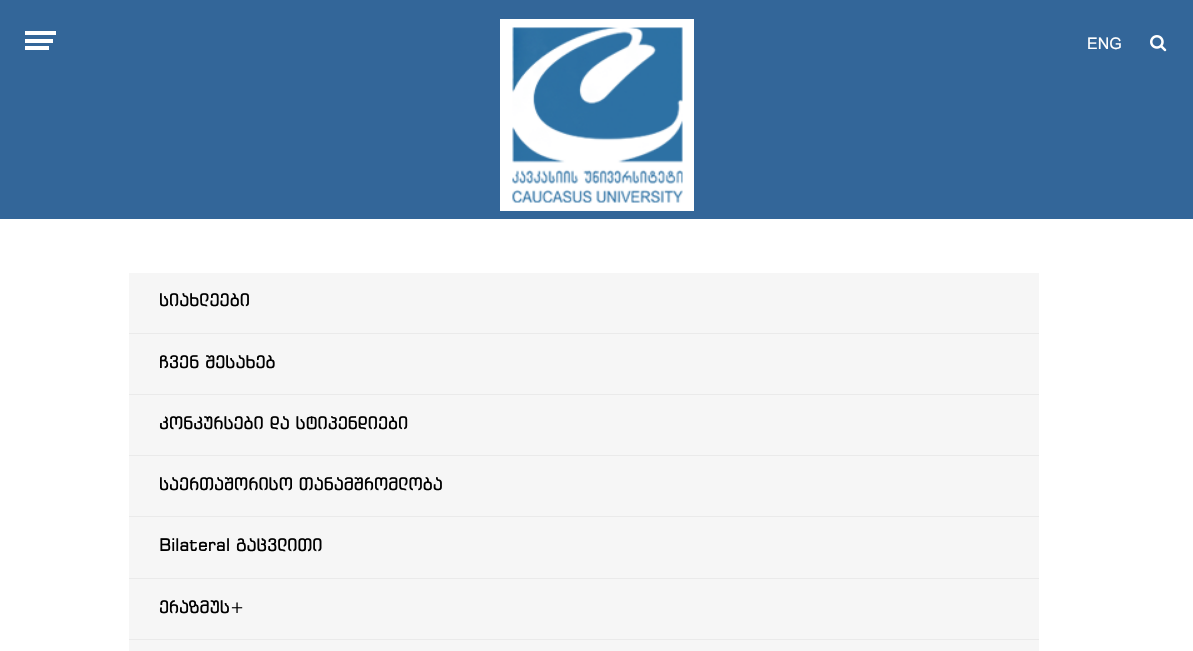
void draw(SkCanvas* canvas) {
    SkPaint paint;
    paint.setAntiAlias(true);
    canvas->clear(0xFF336699);
    paint.setColor(0xFFFFFFFF);
    canvas->drawRect(SkRect::MakeXYWH(25, 31, 31, 4), paint);
    canvas->drawRect(SkRect::MakeXYWH(25, 39, 28, 4), paint);
    canvas->drawRect(SkRect::MakeXYWH(25, 46, 24, 4), paint);
    canvas->drawRect(SkRect::MakeXYWH(500, 19, 194, 192), paint);
    canvas->drawImageRect(SkImages::DeferredFromEncodedData(SkData::MakeFromFileName("img1.png")), SkRect::MakeXYWH(512, 27, 171, 176), SkSamplingOptions());
    SkFont font1(fontMgr->matchFamilyStyle("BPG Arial", SkFontStyle::Normal()), 16);
    font1.setSubpixel(true);
    canvas->drawString("ENG", 1087, 49, font1, paint);
    canvas->drawImageRect(SkImages::DeferredFromEncodedData(SkData::MakeFromFileName("img2.png")), SkRect::MakeXYWH(1150, 35, 17, 17), SkSamplingOptions());
    canvas->drawRect(SkRect::MakeXYWH(0, 219, 1193, 432), paint);
    paint.setColor(0xFFF6F6F6);
    canvas->drawRect(SkRect::MakeXYWH(129, 273, 910, 378), paint);
    paint.setColor(0xFFEAEAEA);
    canvas->drawRect(SkRect::MakeXYWH(129, 333, 910, 1), paint);
    SkFont font2(fontMgr->matchFamilyStyle("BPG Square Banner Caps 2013", SkFontStyle::Normal()), 17.5f);
    font2.setSubpixel(true);
    paint.setColor(0xFF000000);
    canvas->drawString("სიახლეები", 159, 306, font2, paint);
    paint.setColor(0xFFEAEAEA);
    canvas->drawRect(SkRect::MakeXYWH(129, 394, 910, 1), paint);
    paint.setColor(0xFF000000);
    canvas->drawString("ჩვენ შესახებ", 159, 368, font2, paint);
    paint.setColor(0xFFEAEAEA);
    canvas->drawRect(SkRect::MakeXYWH(129, 455, 910, 1), paint);
    paint.setColor(0xFF000000);
    canvas->drawString("კონკურსები და სტიპენდიები", 159, 429, font2, paint);
    paint.setColor(0xFFEAEAEA);
    canvas->drawRect(SkRect::MakeXYWH(129, 516, 910, 1), paint);
    paint.setColor(0xFF000000);
    canvas->drawString("საერთაშორისო თანამშრომლობა", 159, 490, font2, paint);
    paint.setColor(0xFFEAEAEA);
    canvas->drawRect(SkRect::MakeXYWH(129, 578, 910, 1), paint);
    paint.setColor(0xFF000000);
    canvas->drawString("Bilateral გაცვლითი", 159, 551, font2, paint);
    paint.setColor(0xFFEAEAEA);
    canvas->drawRect(SkRect::MakeXYWH(129, 639, 910, 1), paint);
    paint.setColor(0xFF000000);
    canvas->drawString("ერაზმუს+", 159, 613, font2, paint);
}
